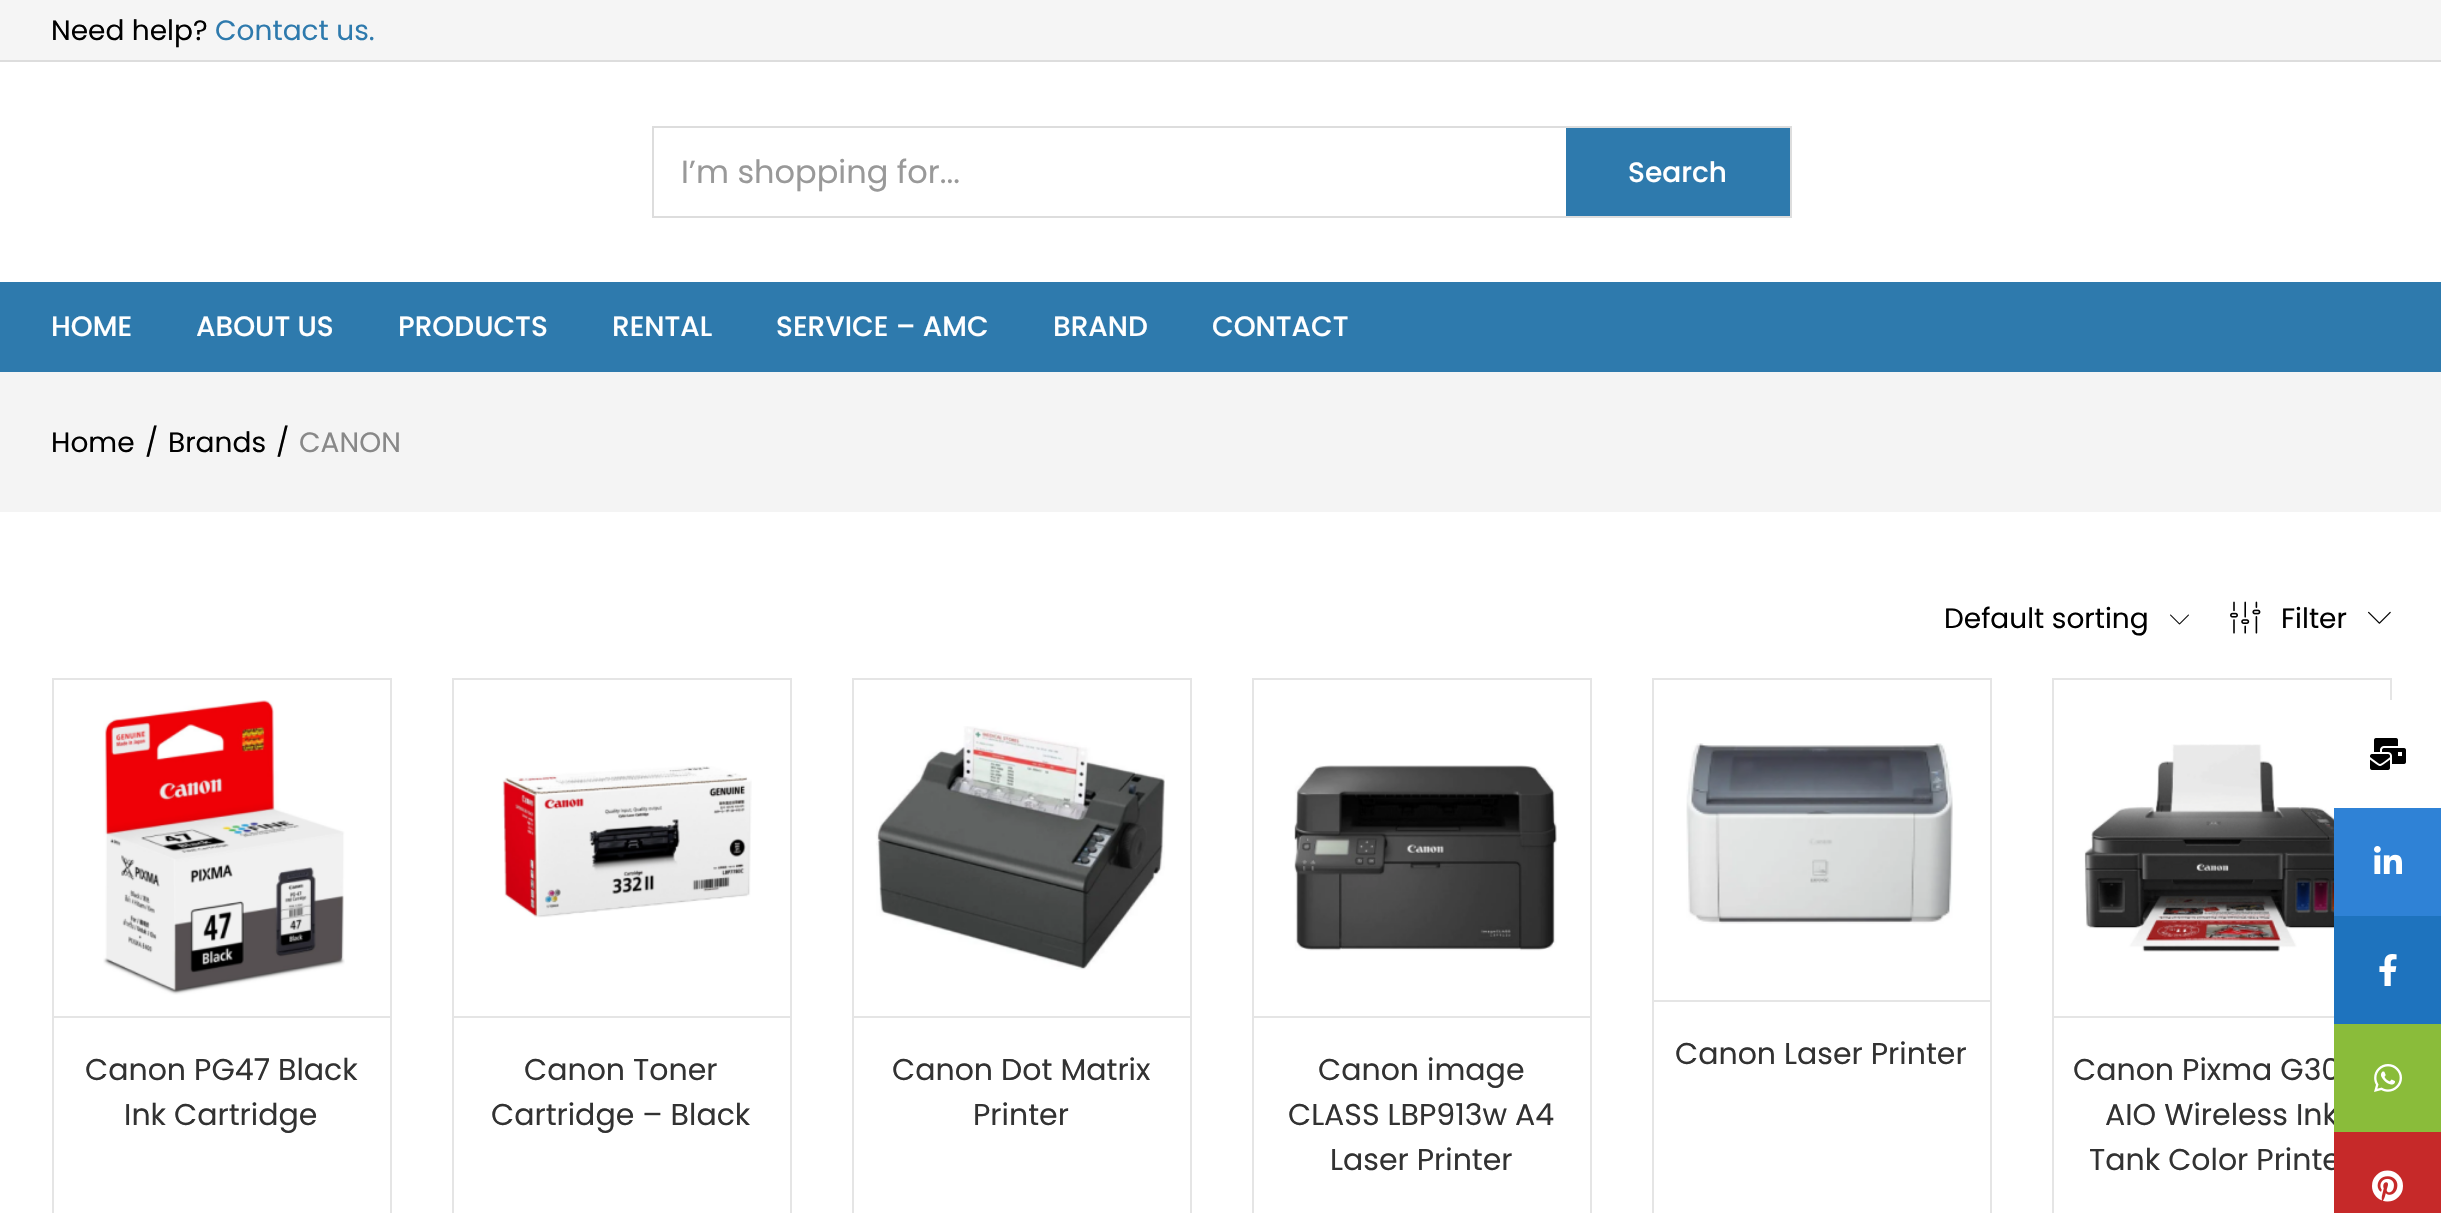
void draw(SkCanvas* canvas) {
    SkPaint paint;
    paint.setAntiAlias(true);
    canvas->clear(0xFFFFFFFF);
    paint.setColor(0xFFF5F5F5);
    canvas->drawRect(SkRect::MakeXYWH(0, 0, 2441, 60), paint);
    paint.setColor(0xFFDDDDDD);
    canvas->drawRect(SkRect::MakeXYWH(0, 60, 2441, 2), paint);
    SkFont font1(fontMgr->matchFamilyStyle("Poppins", SkFontStyle::Normal()), 28);
    font1.setSubpixel(true);
    paint.setColor(0xFF000000);
    canvas->drawString("Need help?", 51, 40, font1, paint);
    paint.setColor(0xFF2E7AAD);
    canvas->drawString("Contact us.", 215, 40, font1, paint);
    paint.setStyle(SkPaint::kStroke_Style);
    paint.setStrokeWidth(2);
    paint.setColor(0xFFDDDDDD);
    canvas->drawRect(SkRect::MakeXYWH(653, 127, 1138, 90), paint);
    SkFont font2(fontMgr->matchFamilyStyle("Poppins", SkFontStyle::Normal()), 32);
    font2.setSubpixel(true);
    paint.setStyle(SkPaint::kFill_Style);
    paint.setColor(0xFF999999);
    canvas->drawString("I’m shopping for...", 681, 183, font2, paint);
    paint.setColor(0xFF2E7AAD);
    canvas->drawRect(SkRect::MakeXYWH(1566, 128, 224, 88), paint);
    SkFont font3(fontMgr->matchFamilyStyle("Poppins", SkFontStyle(500, SkFontStyle::kNormal_Width, SkFontStyle::kUpright_Slant)), 28);
    font3.setSubpixel(true);
    paint.setColor(0xFFFFFFFF);
    canvas->drawString("Search", 1628, 182, font3, paint);
    paint.setColor(0xFF2E7AAD);
    canvas->drawRect(SkRect::MakeXYWH(0, 282, 2441, 90), paint);
    paint.setColor(0xFFFFFFFF);
    canvas->drawString("HOME", 51, 336, font3, paint);
    canvas->drawString("ABOUT US", 196, 336, font3, paint);
    canvas->drawString("PRODUCTS", 398, 336, font3, paint);
    canvas->drawString("RENTAL", 612, 336, font3, paint);
    canvas->drawString("SERVICE – AMC", 776, 336, font3, paint);
    canvas->drawString("BRAND", 1053, 336, font3, paint);
    canvas->drawString("CONTACT", 1212, 336, font3, paint);
    paint.setColor(0xFFF4F4F4);
    canvas->drawRect(SkRect::MakeXYWH(0, 372, 2441, 140), paint);
    paint.setColor(0xFF000000);
    canvas->drawString("Home", 51, 452, font1, paint);
    canvas->drawString("/", 145, 452, font1, paint);
    canvas->drawString("Brands", 168, 452, font1, paint);
    canvas->drawString("/", 276, 452, font1, paint);
    paint.setColor(0xFF888888);
    canvas->drawString("CANON", 299, 452, font1, paint);
    paint.setColor(0xFF000000);
    canvas->drawString("Default sorting", 1944, 628, font1, paint);
    canvas->drawImageRect(SkImages::DeferredFromEncodedData(SkData::MakeFromFileName("img1.png")), SkRect::MakeXYWH(2170, 614, 19, 11), SkSamplingOptions());
    canvas->drawImageRect(SkImages::DeferredFromEncodedData(SkData::MakeFromFileName("img2.png")), SkRect::MakeXYWH(2230, 601, 31, 33), SkSamplingOptions());
    canvas->drawString("Filter", 2281, 628, font1, paint);
    canvas->drawImageRect(SkImages::DeferredFromEncodedData(SkData::MakeFromFileName("img3.png")), SkRect::MakeXYWH(2368, 611, 23, 13), SkSamplingOptions());
    paint.setStyle(SkPaint::kStroke_Style);
    paint.setColor(0xFFE5E5E5);
    canvas->drawRect(SkRect::MakeXYWH(1653, 679, 338, 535), paint);
    canvas->drawImageRect(SkImages::DeferredFromEncodedData(SkData::MakeFromFileName("img4.png")), SkRect::MakeXYWH(1686, 743, 267, 181), SkSamplingOptions());
    paint.setStyle(SkPaint::kFill_Style);
    canvas->drawRect(SkRect::MakeXYWH(1654, 1000, 336, 2), paint);
    SkFont font4(fontMgr->matchFamilyStyle("Poppins", SkFontStyle::Normal()), 30);
    font4.setSubpixel(true);
    paint.setColor(0xFF323232);
    canvas->drawString("Canon Laser Printer", 1675, 1064, font4, paint);
    paint.setStyle(SkPaint::kStroke_Style);
    paint.setColor(0xFFE5E5E5);
    canvas->drawRect(SkRect::MakeXYWH(53, 679, 338, 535), paint);
    canvas->drawImageRect(SkImages::DeferredFromEncodedData(SkData::MakeFromFileName("img5.png")), SkRect::MakeXYWH(103, 700, 242, 295), SkSamplingOptions());
    paint.setStyle(SkPaint::kFill_Style);
    canvas->drawRect(SkRect::MakeXYWH(54, 1016, 336, 2), paint);
    paint.setColor(0xFF323232);
    canvas->drawString("Canon PG47 Black", 85, 1080, font4, paint);
    canvas->drawString("Ink Cartridge", 124, 1125, font4, paint);
    paint.setStyle(SkPaint::kStroke_Style);
    paint.setColor(0xFFE5E5E5);
    canvas->drawRect(SkRect::MakeXYWH(453, 679, 338, 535), paint);
    canvas->drawImageRect(SkImages::DeferredFromEncodedData(SkData::MakeFromFileName("img6.png")), SkRect::MakeXYWH(502, 766, 250, 152), SkSamplingOptions());
    paint.setStyle(SkPaint::kFill_Style);
    canvas->drawRect(SkRect::MakeXYWH(454, 1016, 336, 2), paint);
    paint.setColor(0xFF323232);
    canvas->drawString("Canon Toner", 524, 1080, font4, paint);
    canvas->drawString("Cartridge – Black", 491, 1125, font4, paint);
    paint.setStyle(SkPaint::kStroke_Style);
    paint.setColor(0xFFE5E5E5);
    canvas->drawRect(SkRect::MakeXYWH(853, 679, 338, 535), paint);
    canvas->drawImageRect(SkImages::DeferredFromEncodedData(SkData::MakeFromFileName("img7.png")), SkRect::MakeXYWH(876, 726, 289, 244), SkSamplingOptions());
    paint.setStyle(SkPaint::kFill_Style);
    canvas->drawRect(SkRect::MakeXYWH(854, 1016, 336, 2), paint);
    paint.setColor(0xFF323232);
    canvas->drawString("Canon Dot Matrix", 892, 1080, font4, paint);
    canvas->drawString("Printer", 973, 1125, font4, paint);
    paint.setStyle(SkPaint::kStroke_Style);
    paint.setColor(0xFFE5E5E5);
    canvas->drawRect(SkRect::MakeXYWH(1253, 679, 338, 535), paint);
    canvas->drawImageRect(SkImages::DeferredFromEncodedData(SkData::MakeFromFileName("img8.png")), SkRect::MakeXYWH(1294, 765, 263, 186), SkSamplingOptions());
    paint.setStyle(SkPaint::kFill_Style);
    canvas->drawRect(SkRect::MakeXYWH(1254, 1016, 336, 2), paint);
    paint.setColor(0xFF323232);
    canvas->drawString("Canon image", 1318, 1080, font4, paint);
    canvas->drawString("CLASS LBP913w A4", 1288, 1125, font4, paint);
    canvas->drawString("Laser Printer", 1330, 1170, font4, paint);
    paint.setStyle(SkPaint::kStroke_Style);
    paint.setColor(0xFFE5E5E5);
    canvas->drawRect(SkRect::MakeXYWH(2053, 679, 338, 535), paint);
    canvas->drawImageRect(SkImages::DeferredFromEncodedData(SkData::MakeFromFileName("img9.png")), SkRect::MakeXYWH(2084, 744, 250, 208), SkSamplingOptions());
    paint.setStyle(SkPaint::kFill_Style);
    canvas->drawRect(SkRect::MakeXYWH(2054, 1016, 280, 2), paint);
    paint.setColor(0xFF323232);
    canvas->drawString("Canon Pixma G30", 2073, 1080, font4, paint);
    canvas->drawString("AIO Wireless Ink", 2105, 1125, font4, paint);
    canvas->drawString("Tank Color Printe", 2089, 1170, font4, paint);
    paint.setColor(0xFFFFFFFF);
    canvas->drawPath(SkPathBuilder().moveTo(2344, 700).lineTo(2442, 700).lineTo(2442, 808).lineTo(2334, 808).lineTo(2334, 710).cubicTo(2334, 704.5f, 2338.5f, 700, 2344, 700).close().detach(), paint);
    canvas->drawImageRect(SkImages::DeferredFromEncodedData(SkData::MakeFromFileName("img10.png")), SkRect::MakeXYWH(2370, 738, 36, 32), SkSamplingOptions());
    paint.setColor(0xFF2F82D6);
    canvas->drawRect(SkRect::MakeXYWH(2334, 808, 107, 108), paint);
    canvas->drawImageRect(SkImages::DeferredFromEncodedData(SkData::MakeFromFileName("img11.png")), SkRect::MakeXYWH(2374, 846, 28, 28), SkSamplingOptions());
    paint.setColor(0xFF1E73BE);
    canvas->drawRect(SkRect::MakeXYWH(2334, 916, 107, 108), paint);
    canvas->drawImageRect(SkImages::DeferredFromEncodedData(SkData::MakeFromFileName("img12.png")), SkRect::MakeXYWH(2379, 954, 18, 32), SkSamplingOptions());
    paint.setColor(0xFF8ABC3A);
    canvas->drawRect(SkRect::MakeXYWH(2334, 1024, 107, 108), paint);
    canvas->drawImageRect(SkImages::DeferredFromEncodedData(SkData::MakeFromFileName("img13.png")), SkRect::MakeXYWH(2374, 1064, 28, 28), SkSamplingOptions());
    paint.setColor(0xFFC62929);
    canvas->drawRect(SkRect::MakeXYWH(2334, 1132, 107, 81), paint);
    canvas->drawImageRect(SkImages::DeferredFromEncodedData(SkData::MakeFromFileName("img14.png")), SkRect::MakeXYWH(2372, 1170, 31, 32), SkSamplingOptions());
}
